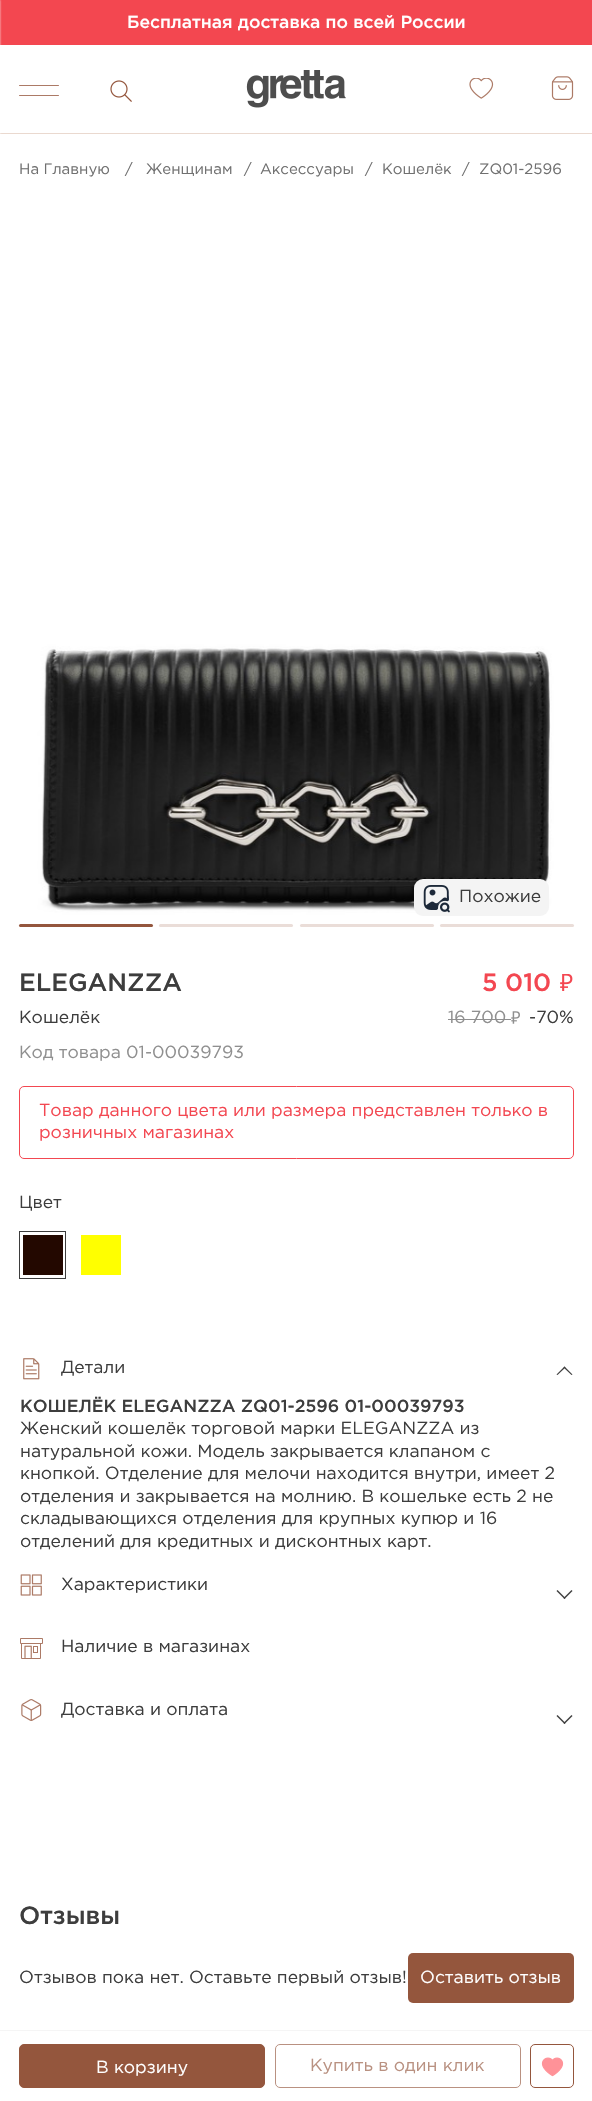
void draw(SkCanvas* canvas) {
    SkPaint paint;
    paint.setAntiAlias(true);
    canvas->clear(0xFFFFFFFF);
    paint.setColor(0xFFF34750);
    canvas->drawRect(SkRect::MakeXYWH(0, 0, 592, 45), paint);
    SkFont font1(fontMgr->matchFamilyStyle("Gotham", SkFontStyle(500, SkFontStyle::kNormal_Width, SkFontStyle::kUpright_Slant)), 17.5f);
    font1.setSubpixel(true);
    paint.setColor(0xFFFFFFFF);
    canvas->drawString("Бесплатная доставка по всей России", 127, 28, font1, paint);
    paint.setColor(0xFFEAD9CF);
    canvas->drawRect(SkRect::MakeXYWH(0, 133, 592, 1), paint);
    paint.setColor(0xFFFFFFFF);
    paint.setMaskFilter(SkMaskFilter::MakeBlur(kNormal_SkBlurStyle, 1));
    canvas->drawRect(SkRect::MakeXYWH(-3, 0, 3, 2101), paint);
    paint.setMaskFilter(nullptr);
    paint.setColor(0xFFAC7A66);
    canvas->drawRoundRect(SkRect::MakeXYWH(19, 85, 40, 1), 0.5f, 0.5f, paint);
    canvas->drawRoundRect(SkRect::MakeXYWH(19, 95, 40, 1), 0.5f, 0.5f, paint);
    canvas->drawImageRect(SkImages::DeferredFromEncodedData(SkData::MakeFromFileName("img1.png")), SkRect::MakeXYWH(110, 80, 22, 22), SkSamplingOptions());
    canvas->drawImageRect(SkImages::DeferredFromEncodedData(SkData::MakeFromFileName("img2.png")), SkRect::MakeXYWH(246, 70, 100, 38), SkSamplingOptions());
    canvas->drawImageRect(SkImages::DeferredFromEncodedData(SkData::MakeFromFileName("img3.png")), SkRect::MakeXYWH(469, 78, 25, 21), SkSamplingOptions());
    canvas->drawImageRect(SkImages::DeferredFromEncodedData(SkData::MakeFromFileName("img4.png")), SkRect::MakeXYWH(551, 76, 23, 24), SkSamplingOptions());
    SkFont font2(fontMgr->matchFamilyStyle("Gotham", SkFontStyle::Normal()), 15);
    font2.setSubpixel(true);
    paint.setColor(0xFF707070);
    canvas->drawString("На Главную", 19, 174, font2, paint);
    canvas->drawString("/", 125, 174, font2, paint);
    canvas->drawString("Женщинам", 146, 174, font2, paint);
    canvas->drawString("/", 244, 174, font2, paint);
    canvas->drawString("Аксессуары", 260, 174, font2, paint);
    canvas->drawString("/", 365, 174, font2, paint);
    canvas->drawString("Кошелёк", 382, 174, font2, paint);
    canvas->drawString("/", 462, 174, font2, paint);
    canvas->drawString("ZQ01-2596", 479, 174, font2, paint);
    canvas->drawImageRect(SkImages::DeferredFromEncodedData(SkData::MakeFromFileName("img5.png")), SkRect::MakeXYWH(19, 195, 555, 740), SkSamplingOptions());
    paint.setColor(0xFFF4F4F4);
    canvas->drawRoundRect(SkRect::MakeXYWH(414, 879, 135, 37), 9, 9, paint);
    canvas->drawImageRect(SkImages::DeferredFromEncodedData(SkData::MakeFromFileName("img6.png")), SkRect::MakeXYWH(423, 885, 27, 28), SkSamplingOptions());
    SkFont font3(fontMgr->matchFamilyStyle("Gotham", SkFontStyle::Normal()), 17.5f);
    font3.setSubpixel(true);
    paint.setColor(0xFF3D3D3D);
    canvas->drawString("Похожие", 459, 902, font3, paint);
    paint.setColor(0xFF94563D);
    canvas->drawRoundRect(SkRect::MakeXYWH(19, 924, 134, 3), 1.5f, 1.5f, paint);
    paint.setColor(0xFFEADDD8);
    canvas->drawRoundRect(SkRect::MakeXYWH(159, 924, 134, 3), 1.5f, 1.5f, paint);
    canvas->drawRoundRect(SkRect::MakeXYWH(300, 924, 134, 3), 1.5f, 1.5f, paint);
    canvas->drawRoundRect(SkRect::MakeXYWH(440, 924, 134, 3), 1.5f, 1.5f, paint);
    SkFont font4(fontMgr->matchFamilyStyle("Gotham", SkFontStyle(500, SkFontStyle::kNormal_Width, SkFontStyle::kUpright_Slant)), 25);
    font4.setSubpixel(true);
    paint.setColor(0xFF3D3D3D);
    canvas->drawString("ELEGANZZA", 19, 991, font4, paint);
    paint.setColor(0xFFF34751);
    canvas->drawString("5 010", 482, 991, font4, paint);
    canvas->drawImageRect(SkImages::DeferredFromEncodedData(SkData::MakeFromFileName("img7.png")), SkRect::MakeXYWH(560, 974, 13, 17), SkSamplingOptions());
    paint.setColor(0xFF3D3D3D);
    canvas->drawString("Кошелёк", 19, 1023, font3, paint);
    paint.setColor(0xFF8F8F8F);
    canvas->drawString("16 700", 448, 1023, font3, paint);
    canvas->drawRect(SkRect::MakeXYWH(448, 1019, 63, 1), paint);
    canvas->drawImageRect(SkImages::DeferredFromEncodedData(SkData::MakeFromFileName("img8.png")), SkRect::MakeXYWH(511, 1011, 9, 13), SkSamplingOptions());
    paint.setColor(0xFF3D3D3D);
    canvas->drawString("-70%", 529, 1023, font3, paint);
    paint.setColor(0xFF8F8F8F);
    canvas->drawString("Код товара 01-00039793", 19, 1058, font3, paint);
    paint.setStyle(SkPaint::kStroke_Style);
    paint.setStrokeWidth(1);
    paint.setColor(0xFFF34751);
    canvas->drawRoundRect(SkRect::MakeXYWH(19.5f, 1086.5f, 554, 72), 4.5f, 4.5f, paint);
    paint.setStyle(SkPaint::kFill_Style);
    canvas->drawString("Товар данного цвета или размера представлен только в", 39, 1116, font3, paint);
    canvas->drawString("розничных магазинах", 39, 1138, font3, paint);
    paint.setColor(0xFF3D3D3D);
    canvas->drawString("Цвет", 19, 1208, font3, paint);
    paint.setStyle(SkPaint::kStroke_Style);
    canvas->drawRect(SkRect::MakeXYWH(19.5f, 1231.5f, 46, 47), paint);
    paint.setStyle(SkPaint::kFill_Style);
    paint.setColor(0xFF230800);
    canvas->drawRect(SkRect::MakeXYWH(23, 1235, 40, 40), paint);
    paint.setColor(0xFFFFFF00);
    canvas->drawRect(SkRect::MakeXYWH(81, 1235, 40, 40), paint);
    paint.setColor(0xFFF5F5F5);
    canvas->drawRect(SkRect::MakeXYWH(0, 2030, 592, 1), paint);
    paint.setColor(0xFF94563D);
    canvas->drawRoundRect(SkRect::MakeXYWH(19.5f, 2044.5f, 245, 43), 4.5f, 4.5f, paint);
    paint.setStyle(SkPaint::kStroke_Style);
    canvas->drawRoundRect(SkRect::MakeXYWH(19.5f, 2044.5f, 245, 43), 4.5f, 4.5f, paint);
    paint.setStyle(SkPaint::kFill_Style);
    paint.setColor(0xFFFFFFFF);
    canvas->drawString("В корзину", 96, 2073, font3, paint);
    paint.setStyle(SkPaint::kStroke_Style);
    paint.setColor(0xFFB99181);
    canvas->drawRoundRect(SkRect::MakeXYWH(275.5f, 2044.5f, 245, 43), 4.5f, 4.5f, paint);
    paint.setStyle(SkPaint::kFill_Style);
    canvas->drawString("Купить в один клик", 310, 2071, font3, paint);
    paint.setStyle(SkPaint::kStroke_Style);
    paint.setColor(0xFF94563D);
    canvas->drawRoundRect(SkRect::MakeXYWH(530.5f, 2044.5f, 43, 43), 4.5f, 4.5f, paint);
    canvas->drawImageRect(SkImages::DeferredFromEncodedData(SkData::MakeFromFileName("img9.png")), SkRect::MakeXYWH(541, 2057, 23, 20), SkSamplingOptions());
    canvas->drawImageRect(SkImages::DeferredFromEncodedData(SkData::MakeFromFileName("img10.png")), SkRect::MakeXYWH(23, 1358, 17, 22), SkSamplingOptions());
    paint.setStyle(SkPaint::kFill_Style);
    paint.setColor(0xFF3D3D3D);
    canvas->drawString("Детали", 61, 1373, font3, paint);
    canvas->drawPath(SkPathBuilder().moveTo(557.5f, 1375).lineTo(556.5f, 1374.5f).lineTo(564.5f, 1366.5f).lineTo(565.5f, 1367.5f).close().detach(), paint);
    canvas->drawPath(SkPathBuilder().moveTo(571.5f, 1375).lineTo(563.5f, 1367.5f).lineTo(564.5f, 1366.5f).lineTo(572.5f, 1374.5f).close().detach(), paint);
    canvas->drawString("КОШЕЛЁК ELEGANZZA ZQ01-2596 01-00039793", 20, 1412, font1, paint);
    canvas->drawString("Женский кошелёк торговой марки ELEGANZZA из", 20, 1434, font3, paint);
    canvas->drawString("натуральной кожи. Модель закрывается клапаном с", 20, 1457, font3, paint);
    canvas->drawString("кнопкой. Отделение для мелочи находится внутри, имеет 2", 20, 1479, font3, paint);
    canvas->drawString("отделения и закрывается на молнию. В кошельке есть 2 не", 20, 1502, font3, paint);
    canvas->drawString("складывающихся отделения для крупных купюр и 16", 20, 1524, font3, paint);
    canvas->drawString("отделений для кредитных и дисконтных карт.", 20, 1547, font3, paint);
    canvas->drawImageRect(SkImages::DeferredFromEncodedData(SkData::MakeFromFileName("img11.png")), SkRect::MakeXYWH(20, 1574, 22, 22), SkSamplingOptions());
    canvas->drawString("Характеристики", 61, 1590, font3, paint);
    canvas->drawPath(SkPathBuilder().moveTo(571.5f, 1590).lineTo(572.5f, 1591).lineTo(564.5f, 1599).lineTo(563.5f, 1598).close().detach(), paint);
    canvas->drawPath(SkPathBuilder().moveTo(557.5f, 1590).lineTo(565.5f, 1598).lineTo(564.5f, 1599).lineTo(556.5f, 1591).close().detach(), paint);
    canvas->drawImageRect(SkImages::DeferredFromEncodedData(SkData::MakeFromFileName("img12.png")), SkRect::MakeXYWH(20, 1638, 23, 21), SkSamplingOptions());
    canvas->drawString("Наличие в магазинах", 61, 1652, font3, paint);
    canvas->drawImageRect(SkImages::DeferredFromEncodedData(SkData::MakeFromFileName("img13.png")), SkRect::MakeXYWH(21, 1699, 21, 22), SkSamplingOptions());
    canvas->drawString("Доставка и оплата", 61, 1715, font3, paint);
    canvas->drawPath(SkPathBuilder().moveTo(571.5f, 1715).lineTo(572.5f, 1716).lineTo(564.5f, 1724).lineTo(563.5f, 1723).close().detach(), paint);
    canvas->drawPath(SkPathBuilder().moveTo(557.5f, 1715).lineTo(565.5f, 1723).lineTo(564.5f, 1724).lineTo(556.5f, 1716).close().detach(), paint);
    canvas->drawString("Отзывы", 19, 1924, font4, paint);
    canvas->drawString("Отзывов пока нет. Оставьте первый отзыв!", 19, 1983, font3, paint);
    paint.setColor(0xFF94563D);
    canvas->drawRoundRect(SkRect::MakeXYWH(408, 1953, 166, 50), 5, 5, paint);
    paint.setColor(0xFFFFFFFF);
    canvas->drawString("Оставить отзыв", 420, 1983, font3, paint);
}
